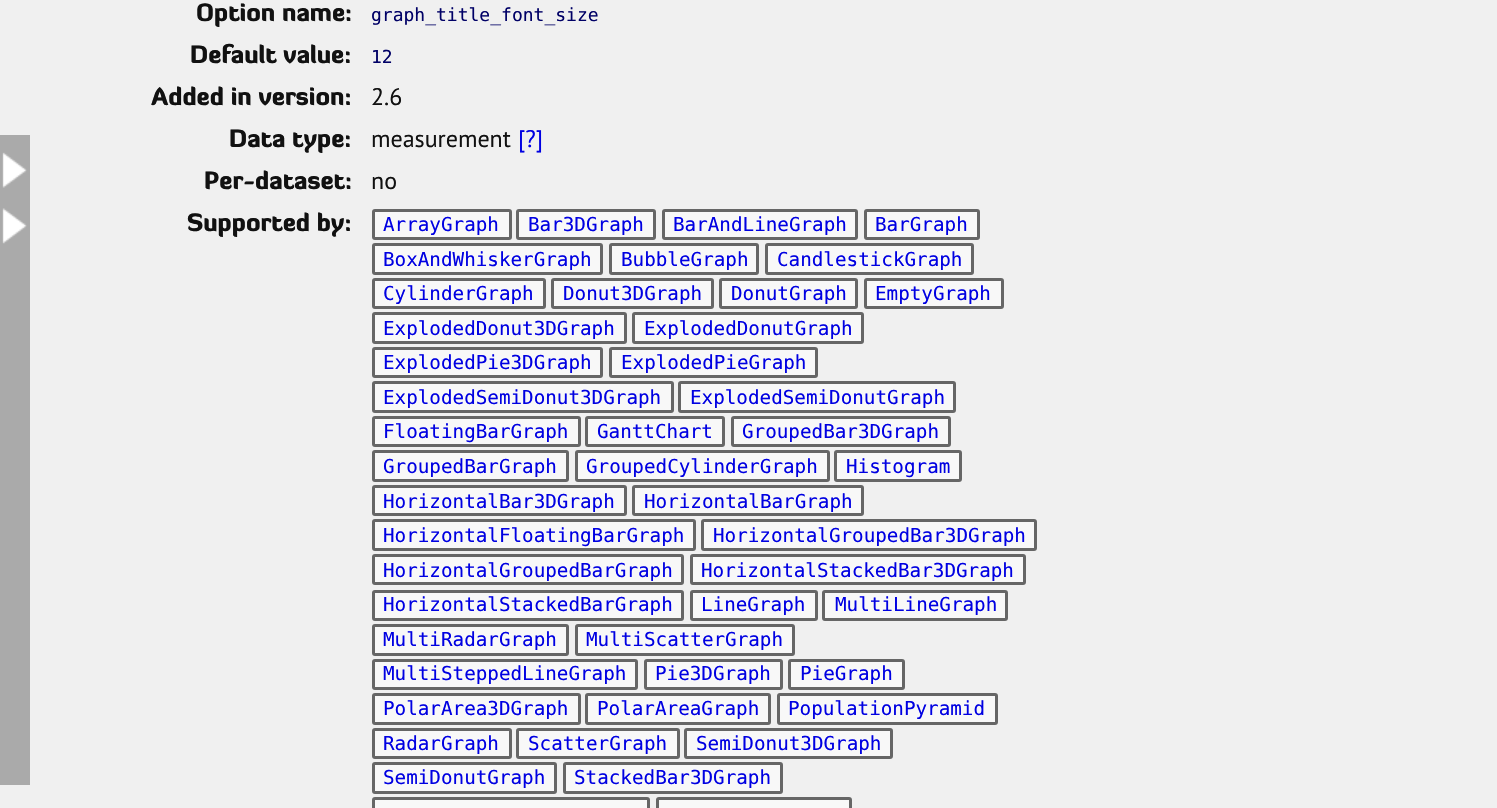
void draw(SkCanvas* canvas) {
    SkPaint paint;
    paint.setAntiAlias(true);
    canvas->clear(0xFFF0F0F0);
    paint.setColor(0xFFAAAAAA);
    canvas->drawRect(SkRect::MakeXYWH(0, 135, 30, 650), paint);
    canvas->drawImageRect(SkImages::DeferredFromEncodedData(SkData::MakeFromFileName("img1.png")), SkRect::MakeXYWH(2, 152, 25, 92), SkSamplingOptions());
    SkFont font1(fontMgr->matchFamilyStyle("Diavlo", SkFontStyle(900, SkFontStyle::kNormal_Width, SkFontStyle::kUpright_Slant)), 24);
    font1.setSubpixel(true);
    paint.setColor(0xFF111111);
    canvas->drawString("Option name:", 196, 21, font1, paint);
    SkFont font2(fontMgr->matchFamilyStyle("DejaVu Sans Mono", SkFontStyle::Normal()), 18);
    font2.setSubpixel(true);
    paint.setColor(0xFF000066);
    canvas->drawString("graph_title_font_size", 371, 21, font2, paint);
    paint.setColor(0xFF111111);
    canvas->drawString("Default value:", 190, 63, font1, paint);
    paint.setColor(0xFF000066);
    canvas->drawString("12", 371, 63, font2, paint);
    paint.setColor(0xFF111111);
    canvas->drawString("Added in version:", 151, 105, font1, paint);
    SkFont font3(fontMgr->matchFamilyStyle("PT Sans", SkFontStyle::Normal()), 24);
    font3.setSubpixel(true);
    canvas->drawString("2.6", 371, 105, font3, paint);
    canvas->drawString("Data type:", 229, 147, font1, paint);
    canvas->drawString("measurement", 371, 147, font3, paint);
    paint.setColor(0xFF0000E2);
    canvas->drawString("[?]", 518, 147, font3, paint);
    paint.setColor(0xFF111111);
    canvas->drawString("Per-dataset:", 204, 189, font1, paint);
    canvas->drawString("no", 371, 189, font3, paint);
    canvas->drawString("Supported by:", 187, 231, font1, paint);
    paint.setColor(0xFFF8F8F8);
    canvas->drawRoundRect(SkRect::MakeXYWH(373.5f, 210.5f, 137, 28), 1.5f, 1.5f, paint);
    paint.setStyle(SkPaint::kStroke_Style);
    paint.setStrokeWidth(3);
    paint.setColor(0xFF666666);
    canvas->drawRoundRect(SkRect::MakeXYWH(373.5f, 210.5f, 137, 28), 1.5f, 1.5f, paint);
    SkFont font4(fontMgr->matchFamilyStyle("DejaVu Sans Mono", SkFontStyle::Normal()), 19.25f);
    font4.setSubpixel(true);
    paint.setStyle(SkPaint::kFill_Style);
    paint.setColor(0xFF0000E2);
    canvas->drawString("ArrayGraph", 383, 231, font4, paint);
    paint.setColor(0xFFF8F8F8);
    canvas->drawRoundRect(SkRect::MakeXYWH(517.5f, 210.5f, 137, 28), 1.5f, 1.5f, paint);
    paint.setStyle(SkPaint::kStroke_Style);
    paint.setColor(0xFF666666);
    canvas->drawRoundRect(SkRect::MakeXYWH(517.5f, 210.5f, 137, 28), 1.5f, 1.5f, paint);
    paint.setStyle(SkPaint::kFill_Style);
    paint.setColor(0xFF0000E2);
    canvas->drawString("Bar3DGraph", 528, 231, font4, paint);
    paint.setColor(0xFFF8F8F8);
    canvas->drawRoundRect(SkRect::MakeXYWH(663.5f, 210.5f, 193, 28), 1.5f, 1.5f, paint);
    paint.setStyle(SkPaint::kStroke_Style);
    paint.setColor(0xFF666666);
    canvas->drawRoundRect(SkRect::MakeXYWH(663.5f, 210.5f, 193, 28), 1.5f, 1.5f, paint);
    paint.setStyle(SkPaint::kFill_Style);
    paint.setColor(0xFF0000E2);
    canvas->drawString("BarAndLineGraph", 673, 231, font4, paint);
    paint.setColor(0xFFF8F8F8);
    canvas->drawRoundRect(SkRect::MakeXYWH(865.5f, 210.5f, 113, 28), 1.5f, 1.5f, paint);
    paint.setStyle(SkPaint::kStroke_Style);
    paint.setColor(0xFF666666);
    canvas->drawRoundRect(SkRect::MakeXYWH(865.5f, 210.5f, 113, 28), 1.5f, 1.5f, paint);
    paint.setStyle(SkPaint::kFill_Style);
    paint.setColor(0xFF0000E2);
    canvas->drawString("BarGraph", 875, 231, font4, paint);
    paint.setColor(0xFFF8F8F8);
    canvas->drawRoundRect(SkRect::MakeXYWH(373.5f, 244.5f, 228, 29), 1.5f, 1.5f, paint);
    paint.setStyle(SkPaint::kStroke_Style);
    paint.setColor(0xFF666666);
    canvas->drawRoundRect(SkRect::MakeXYWH(373.5f, 244.5f, 228, 29), 1.5f, 1.5f, paint);
    paint.setStyle(SkPaint::kFill_Style);
    paint.setColor(0xFF0000E2);
    canvas->drawString("BoxAndWhiskerGraph", 383, 266, font4, paint);
    paint.setColor(0xFFF8F8F8);
    canvas->drawRoundRect(SkRect::MakeXYWH(610.5f, 244.5f, 147, 29), 1.5f, 1.5f, paint);
    paint.setStyle(SkPaint::kStroke_Style);
    paint.setColor(0xFF666666);
    canvas->drawRoundRect(SkRect::MakeXYWH(610.5f, 244.5f, 147, 29), 1.5f, 1.5f, paint);
    paint.setStyle(SkPaint::kFill_Style);
    paint.setColor(0xFF0000E2);
    canvas->drawString("BubbleGraph", 621, 266, font4, paint);
    paint.setColor(0xFFF8F8F8);
    canvas->drawRoundRect(SkRect::MakeXYWH(766.5f, 244.5f, 206, 29), 1.5f, 1.5f, paint);
    paint.setStyle(SkPaint::kStroke_Style);
    paint.setColor(0xFF666666);
    canvas->drawRoundRect(SkRect::MakeXYWH(766.5f, 244.5f, 206, 29), 1.5f, 1.5f, paint);
    paint.setStyle(SkPaint::kFill_Style);
    paint.setColor(0xFF0000E2);
    canvas->drawString("CandlestickGraph", 777, 266, font4, paint);
    paint.setColor(0xFFF8F8F8);
    canvas->drawRoundRect(SkRect::MakeXYWH(373.5f, 279.5f, 171, 28), 1.5f, 1.5f, paint);
    paint.setStyle(SkPaint::kStroke_Style);
    paint.setColor(0xFF666666);
    canvas->drawRoundRect(SkRect::MakeXYWH(373.5f, 279.5f, 171, 28), 1.5f, 1.5f, paint);
    paint.setStyle(SkPaint::kFill_Style);
    paint.setColor(0xFF0000E2);
    canvas->drawString("CylinderGraph", 383, 300, font4, paint);
    paint.setColor(0xFFF8F8F8);
    canvas->drawRoundRect(SkRect::MakeXYWH(552.5f, 279.5f, 160, 28), 1.5f, 1.5f, paint);
    paint.setStyle(SkPaint::kStroke_Style);
    paint.setColor(0xFF666666);
    canvas->drawRoundRect(SkRect::MakeXYWH(552.5f, 279.5f, 160, 28), 1.5f, 1.5f, paint);
    paint.setStyle(SkPaint::kFill_Style);
    paint.setColor(0xFF0000E2);
    canvas->drawString("Donut3DGraph", 563, 300, font4, paint);
    paint.setColor(0xFFF8F8F8);
    canvas->drawRoundRect(SkRect::MakeXYWH(720.5f, 279.5f, 136, 28), 1.5f, 1.5f, paint);
    paint.setStyle(SkPaint::kStroke_Style);
    paint.setColor(0xFF666666);
    canvas->drawRoundRect(SkRect::MakeXYWH(720.5f, 279.5f, 136, 28), 1.5f, 1.5f, paint);
    paint.setStyle(SkPaint::kFill_Style);
    paint.setColor(0xFF0000E2);
    canvas->drawString("DonutGraph", 731, 300, font4, paint);
    paint.setColor(0xFFF8F8F8);
    canvas->drawRoundRect(SkRect::MakeXYWH(865.5f, 279.5f, 137, 28), 1.5f, 1.5f, paint);
    paint.setStyle(SkPaint::kStroke_Style);
    paint.setColor(0xFF666666);
    canvas->drawRoundRect(SkRect::MakeXYWH(865.5f, 279.5f, 137, 28), 1.5f, 1.5f, paint);
    paint.setStyle(SkPaint::kFill_Style);
    paint.setColor(0xFF0000E2);
    canvas->drawString("EmptyGraph", 875, 300, font4, paint);
    paint.setColor(0xFFF8F8F8);
    canvas->drawRoundRect(SkRect::MakeXYWH(373.5f, 313.5f, 252, 29), 1.5f, 1.5f, paint);
    paint.setStyle(SkPaint::kStroke_Style);
    paint.setColor(0xFF666666);
    canvas->drawRoundRect(SkRect::MakeXYWH(373.5f, 313.5f, 252, 29), 1.5f, 1.5f, paint);
    paint.setStyle(SkPaint::kFill_Style);
    paint.setColor(0xFF0000E2);
    canvas->drawString("ExplodedDonut3DGraph", 383, 335, font4, paint);
    paint.setColor(0xFFF8F8F8);
    canvas->drawRoundRect(SkRect::MakeXYWH(633.5f, 313.5f, 229, 29), 1.5f, 1.5f, paint);
    paint.setStyle(SkPaint::kStroke_Style);
    paint.setColor(0xFF666666);
    canvas->drawRoundRect(SkRect::MakeXYWH(633.5f, 313.5f, 229, 29), 1.5f, 1.5f, paint);
    paint.setStyle(SkPaint::kFill_Style);
    paint.setColor(0xFF0000E2);
    canvas->drawString("ExplodedDonutGraph", 644, 335, font4, paint);
    paint.setColor(0xFFF8F8F8);
    canvas->drawRoundRect(SkRect::MakeXYWH(373.5f, 348.5f, 228, 28), 1.5f, 1.5f, paint);
    paint.setStyle(SkPaint::kStroke_Style);
    paint.setColor(0xFF666666);
    canvas->drawRoundRect(SkRect::MakeXYWH(373.5f, 348.5f, 228, 28), 1.5f, 1.5f, paint);
    paint.setStyle(SkPaint::kFill_Style);
    paint.setColor(0xFF0000E2);
    canvas->drawString("ExplodedPie3DGraph", 383, 369, font4, paint);
    paint.setColor(0xFFF8F8F8);
    canvas->drawRoundRect(SkRect::MakeXYWH(610.5f, 348.5f, 206, 28), 1.5f, 1.5f, paint);
    paint.setStyle(SkPaint::kStroke_Style);
    paint.setColor(0xFF666666);
    canvas->drawRoundRect(SkRect::MakeXYWH(610.5f, 348.5f, 206, 28), 1.5f, 1.5f, paint);
    paint.setStyle(SkPaint::kFill_Style);
    paint.setColor(0xFF0000E2);
    canvas->drawString("ExplodedPieGraph", 621, 369, font4, paint);
    paint.setColor(0xFFF8F8F8);
    canvas->drawRoundRect(SkRect::MakeXYWH(373.5f, 382.5f, 299, 29), 1.5f, 1.5f, paint);
    paint.setStyle(SkPaint::kStroke_Style);
    paint.setColor(0xFF666666);
    canvas->drawRoundRect(SkRect::MakeXYWH(373.5f, 382.5f, 299, 29), 1.5f, 1.5f, paint);
    paint.setStyle(SkPaint::kFill_Style);
    paint.setColor(0xFF0000E2);
    canvas->drawString("ExplodedSemiDonut3DGraph", 383, 404, font4, paint);
    paint.setColor(0xFFF8F8F8);
    canvas->drawRoundRect(SkRect::MakeXYWH(679.5f, 382.5f, 275, 29), 1.5f, 1.5f, paint);
    paint.setStyle(SkPaint::kStroke_Style);
    paint.setColor(0xFF666666);
    canvas->drawRoundRect(SkRect::MakeXYWH(679.5f, 382.5f, 275, 29), 1.5f, 1.5f, paint);
    paint.setStyle(SkPaint::kFill_Style);
    paint.setColor(0xFF0000E2);
    canvas->drawString("ExplodedSemiDonutGraph", 690, 404, font4, paint);
    paint.setColor(0xFFF8F8F8);
    canvas->drawRoundRect(SkRect::MakeXYWH(373.5f, 417.5f, 206, 28), 1.5f, 1.5f, paint);
    paint.setStyle(SkPaint::kStroke_Style);
    paint.setColor(0xFF666666);
    canvas->drawRoundRect(SkRect::MakeXYWH(373.5f, 417.5f, 206, 28), 1.5f, 1.5f, paint);
    paint.setStyle(SkPaint::kFill_Style);
    paint.setColor(0xFF0000E2);
    canvas->drawString("FloatingBarGraph", 383, 438, font4, paint);
    paint.setColor(0xFFF8F8F8);
    canvas->drawRoundRect(SkRect::MakeXYWH(586.5f, 417.5f, 137, 28), 1.5f, 1.5f, paint);
    paint.setStyle(SkPaint::kStroke_Style);
    paint.setColor(0xFF666666);
    canvas->drawRoundRect(SkRect::MakeXYWH(586.5f, 417.5f, 137, 28), 1.5f, 1.5f, paint);
    paint.setStyle(SkPaint::kFill_Style);
    paint.setColor(0xFF0000E2);
    canvas->drawString("GanttChart", 597, 438, font4, paint);
    paint.setColor(0xFFF8F8F8);
    canvas->drawRoundRect(SkRect::MakeXYWH(732.5f, 417.5f, 217, 28), 1.5f, 1.5f, paint);
    paint.setStyle(SkPaint::kStroke_Style);
    paint.setColor(0xFF666666);
    canvas->drawRoundRect(SkRect::MakeXYWH(732.5f, 417.5f, 217, 28), 1.5f, 1.5f, paint);
    paint.setStyle(SkPaint::kFill_Style);
    paint.setColor(0xFF0000E2);
    canvas->drawString("GroupedBar3DGraph", 742, 438, font4, paint);
    paint.setColor(0xFFF8F8F8);
    canvas->drawRoundRect(SkRect::MakeXYWH(373.5f, 451.5f, 194, 29), 1.5f, 1.5f, paint);
    paint.setStyle(SkPaint::kStroke_Style);
    paint.setColor(0xFF666666);
    canvas->drawRoundRect(SkRect::MakeXYWH(373.5f, 451.5f, 194, 29), 1.5f, 1.5f, paint);
    paint.setStyle(SkPaint::kFill_Style);
    paint.setColor(0xFF0000E2);
    canvas->drawString("GroupedBarGraph", 383, 473, font4, paint);
    paint.setColor(0xFFF8F8F8);
    canvas->drawRoundRect(SkRect::MakeXYWH(576.5f, 451.5f, 252, 29), 1.5f, 1.5f, paint);
    paint.setStyle(SkPaint::kStroke_Style);
    paint.setColor(0xFF666666);
    canvas->drawRoundRect(SkRect::MakeXYWH(576.5f, 451.5f, 252, 29), 1.5f, 1.5f, paint);
    paint.setStyle(SkPaint::kFill_Style);
    paint.setColor(0xFF0000E2);
    canvas->drawString("GroupedCylinderGraph", 586, 473, font4, paint);
    paint.setColor(0xFFF8F8F8);
    canvas->drawRoundRect(SkRect::MakeXYWH(835.5f, 451.5f, 125, 29), 1.5f, 1.5f, paint);
    paint.setStyle(SkPaint::kStroke_Style);
    paint.setColor(0xFF666666);
    canvas->drawRoundRect(SkRect::MakeXYWH(835.5f, 451.5f, 125, 29), 1.5f, 1.5f, paint);
    paint.setStyle(SkPaint::kFill_Style);
    paint.setColor(0xFF0000E2);
    canvas->drawString("Histogram", 846, 473, font4, paint);
    paint.setColor(0xFFF8F8F8);
    canvas->drawRoundRect(SkRect::MakeXYWH(373.5f, 486.5f, 252, 28), 1.5f, 1.5f, paint);
    paint.setStyle(SkPaint::kStroke_Style);
    paint.setColor(0xFF666666);
    canvas->drawRoundRect(SkRect::MakeXYWH(373.5f, 486.5f, 252, 28), 1.5f, 1.5f, paint);
    paint.setStyle(SkPaint::kFill_Style);
    paint.setColor(0xFF0000E2);
    canvas->drawString("HorizontalBar3DGraph", 383, 508, font4, paint);
    paint.setColor(0xFFF8F8F8);
    canvas->drawRoundRect(SkRect::MakeXYWH(633.5f, 486.5f, 229, 28), 1.5f, 1.5f, paint);
    paint.setStyle(SkPaint::kStroke_Style);
    paint.setColor(0xFF666666);
    canvas->drawRoundRect(SkRect::MakeXYWH(633.5f, 486.5f, 229, 28), 1.5f, 1.5f, paint);
    paint.setStyle(SkPaint::kFill_Style);
    paint.setColor(0xFF0000E2);
    canvas->drawString("HorizontalBarGraph", 644, 508, font4, paint);
    paint.setColor(0xFFF8F8F8);
    canvas->drawRoundRect(SkRect::MakeXYWH(373.5f, 520.5f, 321, 29), 1.5f, 1.5f, paint);
    paint.setStyle(SkPaint::kStroke_Style);
    paint.setColor(0xFF666666);
    canvas->drawRoundRect(SkRect::MakeXYWH(373.5f, 520.5f, 321, 29), 1.5f, 1.5f, paint);
    paint.setStyle(SkPaint::kFill_Style);
    paint.setColor(0xFF0000E2);
    canvas->drawString("HorizontalFloatingBarGraph", 383, 542, font4, paint);
    paint.setColor(0xFFF8F8F8);
    canvas->drawRoundRect(SkRect::MakeXYWH(702.5f, 520.5f, 333, 29), 1.5f, 1.5f, paint);
    paint.setStyle(SkPaint::kStroke_Style);
    paint.setColor(0xFF666666);
    canvas->drawRoundRect(SkRect::MakeXYWH(702.5f, 520.5f, 333, 29), 1.5f, 1.5f, paint);
    paint.setStyle(SkPaint::kFill_Style);
    paint.setColor(0xFF0000E2);
    canvas->drawString("HorizontalGroupedBar3DGraph", 713, 542, font4, paint);
    paint.setColor(0xFFF8F8F8);
    canvas->drawRoundRect(SkRect::MakeXYWH(373.5f, 555.5f, 309, 28), 1.5f, 1.5f, paint);
    paint.setStyle(SkPaint::kStroke_Style);
    paint.setColor(0xFF666666);
    canvas->drawRoundRect(SkRect::MakeXYWH(373.5f, 555.5f, 309, 28), 1.5f, 1.5f, paint);
    paint.setStyle(SkPaint::kFill_Style);
    paint.setColor(0xFF0000E2);
    canvas->drawString("HorizontalGroupedBarGraph", 383, 577, font4, paint);
    paint.setColor(0xFFF8F8F8);
    canvas->drawRoundRect(SkRect::MakeXYWH(691.5f, 555.5f, 333, 28), 1.5f, 1.5f, paint);
    paint.setStyle(SkPaint::kStroke_Style);
    paint.setColor(0xFF666666);
    canvas->drawRoundRect(SkRect::MakeXYWH(691.5f, 555.5f, 333, 28), 1.5f, 1.5f, paint);
    paint.setStyle(SkPaint::kFill_Style);
    paint.setColor(0xFF0000E2);
    canvas->drawString("HorizontalStackedBar3DGraph", 701, 577, font4, paint);
    paint.setColor(0xFFF8F8F8);
    canvas->drawRoundRect(SkRect::MakeXYWH(373.5f, 591.5f, 309, 28), 1.5f, 1.5f, paint);
    paint.setStyle(SkPaint::kStroke_Style);
    paint.setColor(0xFF666666);
    canvas->drawRoundRect(SkRect::MakeXYWH(373.5f, 591.5f, 309, 28), 1.5f, 1.5f, paint);
    paint.setStyle(SkPaint::kFill_Style);
    paint.setColor(0xFF0000E2);
    canvas->drawString("HorizontalStackedBarGraph", 383, 611, font4, paint);
    paint.setColor(0xFFF8F8F8);
    canvas->drawRoundRect(SkRect::MakeXYWH(691.5f, 591.5f, 125, 28), 1.5f, 1.5f, paint);
    paint.setStyle(SkPaint::kStroke_Style);
    paint.setColor(0xFF666666);
    canvas->drawRoundRect(SkRect::MakeXYWH(691.5f, 591.5f, 125, 28), 1.5f, 1.5f, paint);
    paint.setStyle(SkPaint::kFill_Style);
    paint.setColor(0xFF0000E2);
    canvas->drawString("LineGraph", 701, 611, font4, paint);
    paint.setColor(0xFFF8F8F8);
    canvas->drawRoundRect(SkRect::MakeXYWH(823.5f, 591.5f, 183, 28), 1.5f, 1.5f, paint);
    paint.setStyle(SkPaint::kStroke_Style);
    paint.setColor(0xFF666666);
    canvas->drawRoundRect(SkRect::MakeXYWH(823.5f, 591.5f, 183, 28), 1.5f, 1.5f, paint);
    paint.setStyle(SkPaint::kFill_Style);
    paint.setColor(0xFF0000E2);
    canvas->drawString("MultiLineGraph", 835, 611, font4, paint);
    paint.setColor(0xFFF8F8F8);
    canvas->drawRoundRect(SkRect::MakeXYWH(373.5f, 625.5f, 194, 29), 1.5f, 1.5f, paint);
    paint.setStyle(SkPaint::kStroke_Style);
    paint.setColor(0xFF666666);
    canvas->drawRoundRect(SkRect::MakeXYWH(373.5f, 625.5f, 194, 29), 1.5f, 1.5f, paint);
    paint.setStyle(SkPaint::kFill_Style);
    paint.setColor(0xFF0000E2);
    canvas->drawString("MultiRadarGraph", 383, 646, font4, paint);
    paint.setColor(0xFFF8F8F8);
    canvas->drawRoundRect(SkRect::MakeXYWH(576.5f, 625.5f, 217, 29), 1.5f, 1.5f, paint);
    paint.setStyle(SkPaint::kStroke_Style);
    paint.setColor(0xFF666666);
    canvas->drawRoundRect(SkRect::MakeXYWH(576.5f, 625.5f, 217, 29), 1.5f, 1.5f, paint);
    paint.setStyle(SkPaint::kFill_Style);
    paint.setColor(0xFF0000E2);
    canvas->drawString("MultiScatterGraph", 586, 646, font4, paint);
    paint.setColor(0xFFF8F8F8);
    canvas->drawRoundRect(SkRect::MakeXYWH(373.5f, 660.5f, 263, 28), 1.5f, 1.5f, paint);
    paint.setStyle(SkPaint::kStroke_Style);
    paint.setColor(0xFF666666);
    canvas->drawRoundRect(SkRect::MakeXYWH(373.5f, 660.5f, 263, 28), 1.5f, 1.5f, paint);
    paint.setStyle(SkPaint::kFill_Style);
    paint.setColor(0xFF0000E2);
    canvas->drawString("MultiSteppedLineGraph", 383, 680, font4, paint);
    paint.setColor(0xFFF8F8F8);
    canvas->drawRoundRect(SkRect::MakeXYWH(645.5f, 660.5f, 136, 28), 1.5f, 1.5f, paint);
    paint.setStyle(SkPaint::kStroke_Style);
    paint.setColor(0xFF666666);
    canvas->drawRoundRect(SkRect::MakeXYWH(645.5f, 660.5f, 136, 28), 1.5f, 1.5f, paint);
    paint.setStyle(SkPaint::kFill_Style);
    paint.setColor(0xFF0000E2);
    canvas->drawString("Pie3DGraph", 655, 680, font4, paint);
    paint.setColor(0xFFF8F8F8);
    canvas->drawRoundRect(SkRect::MakeXYWH(789.5f, 660.5f, 114, 28), 1.5f, 1.5f, paint);
    paint.setStyle(SkPaint::kStroke_Style);
    paint.setColor(0xFF666666);
    canvas->drawRoundRect(SkRect::MakeXYWH(789.5f, 660.5f, 114, 28), 1.5f, 1.5f, paint);
    paint.setStyle(SkPaint::kFill_Style);
    paint.setColor(0xFF0000E2);
    canvas->drawString("PieGraph", 800, 680, font4, paint);
    paint.setColor(0xFFF8F8F8);
    canvas->drawRoundRect(SkRect::MakeXYWH(373.5f, 694.5f, 206, 29), 1.5f, 1.5f, paint);
    paint.setStyle(SkPaint::kStroke_Style);
    paint.setColor(0xFF666666);
    canvas->drawRoundRect(SkRect::MakeXYWH(373.5f, 694.5f, 206, 29), 1.5f, 1.5f, paint);
    paint.setStyle(SkPaint::kFill_Style);
    paint.setColor(0xFF0000E2);
    canvas->drawString("PolarArea3DGraph", 383, 715, font4, paint);
    paint.setColor(0xFFF8F8F8);
    canvas->drawRoundRect(SkRect::MakeXYWH(586.5f, 694.5f, 183, 29), 1.5f, 1.5f, paint);
    paint.setStyle(SkPaint::kStroke_Style);
    paint.setColor(0xFF666666);
    canvas->drawRoundRect(SkRect::MakeXYWH(586.5f, 694.5f, 183, 29), 1.5f, 1.5f, paint);
    paint.setStyle(SkPaint::kFill_Style);
    paint.setColor(0xFF0000E2);
    canvas->drawString("PolarAreaGraph", 597, 715, font4, paint);
    paint.setColor(0xFFF8F8F8);
    canvas->drawRoundRect(SkRect::MakeXYWH(778.5f, 694.5f, 218, 29), 1.5f, 1.5f, paint);
    paint.setStyle(SkPaint::kStroke_Style);
    paint.setColor(0xFF666666);
    canvas->drawRoundRect(SkRect::MakeXYWH(778.5f, 694.5f, 218, 29), 1.5f, 1.5f, paint);
    paint.setStyle(SkPaint::kFill_Style);
    paint.setColor(0xFF0000E2);
    canvas->drawString("PopulationPyramid", 788, 715, font4, paint);
    paint.setColor(0xFFF8F8F8);
    canvas->drawRoundRect(SkRect::MakeXYWH(373.5f, 729.5f, 137, 28), 1.5f, 1.5f, paint);
    paint.setStyle(SkPaint::kStroke_Style);
    paint.setColor(0xFF666666);
    canvas->drawRoundRect(SkRect::MakeXYWH(373.5f, 729.5f, 137, 28), 1.5f, 1.5f, paint);
    paint.setStyle(SkPaint::kFill_Style);
    paint.setColor(0xFF0000E2);
    canvas->drawString("RadarGraph", 383, 750, font4, paint);
    paint.setColor(0xFFF8F8F8);
    canvas->drawRoundRect(SkRect::MakeXYWH(517.5f, 729.5f, 161, 28), 1.5f, 1.5f, paint);
    paint.setStyle(SkPaint::kStroke_Style);
    paint.setColor(0xFF666666);
    canvas->drawRoundRect(SkRect::MakeXYWH(517.5f, 729.5f, 161, 28), 1.5f, 1.5f, paint);
    paint.setStyle(SkPaint::kFill_Style);
    paint.setColor(0xFF0000E2);
    canvas->drawString("ScatterGraph", 528, 750, font4, paint);
    paint.setColor(0xFFF8F8F8);
    canvas->drawRoundRect(SkRect::MakeXYWH(685.5f, 729.5f, 206, 28), 1.5f, 1.5f, paint);
    paint.setStyle(SkPaint::kStroke_Style);
    paint.setColor(0xFF666666);
    canvas->drawRoundRect(SkRect::MakeXYWH(685.5f, 729.5f, 206, 28), 1.5f, 1.5f, paint);
    paint.setStyle(SkPaint::kFill_Style);
    paint.setColor(0xFF0000E2);
    canvas->drawString("SemiDonut3DGraph", 696, 750, font4, paint);
    paint.setColor(0xFFF8F8F8);
    canvas->drawRoundRect(SkRect::MakeXYWH(373.5f, 763.5f, 182, 29), 1.5f, 1.5f, paint);
    paint.setStyle(SkPaint::kStroke_Style);
    paint.setColor(0xFF666666);
    canvas->drawRoundRect(SkRect::MakeXYWH(373.5f, 763.5f, 182, 29), 1.5f, 1.5f, paint);
    paint.setStyle(SkPaint::kFill_Style);
    paint.setColor(0xFF0000E2);
    canvas->drawString("SemiDonutGraph", 383, 784, font4, paint);
    paint.setColor(0xFFF8F8F8);
    canvas->drawRoundRect(SkRect::MakeXYWH(564.5f, 763.5f, 217, 29), 1.5f, 1.5f, paint);
    paint.setStyle(SkPaint::kStroke_Style);
    paint.setColor(0xFF666666);
    canvas->drawRoundRect(SkRect::MakeXYWH(564.5f, 763.5f, 217, 29), 1.5f, 1.5f, paint);
    paint.setStyle(SkPaint::kFill_Style);
    paint.setColor(0xFF0000E2);
    canvas->drawString("StackedBar3DGraph", 574, 784, font4, paint);
    paint.setColor(0xFFF8F8F8);
    canvas->drawRoundRect(SkRect::MakeXYWH(373.5f, 798.5f, 275, 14), 1.5f, 1.5f, paint);
    paint.setStyle(SkPaint::kStroke_Style);
    paint.setColor(0xFF666666);
    canvas->drawRoundRect(SkRect::MakeXYWH(373.5f, 798.5f, 275, 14), 1.5f, 1.5f, paint);
    paint.setStyle(SkPaint::kFill_Style);
    paint.setColor(0xFFF8F8F8);
    canvas->drawRoundRect(SkRect::MakeXYWH(657.5f, 798.5f, 193, 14), 1.5f, 1.5f, paint);
    paint.setStyle(SkPaint::kStroke_Style);
    paint.setColor(0xFF666666);
    canvas->drawRoundRect(SkRect::MakeXYWH(657.5f, 798.5f, 193, 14), 1.5f, 1.5f, paint);
}
